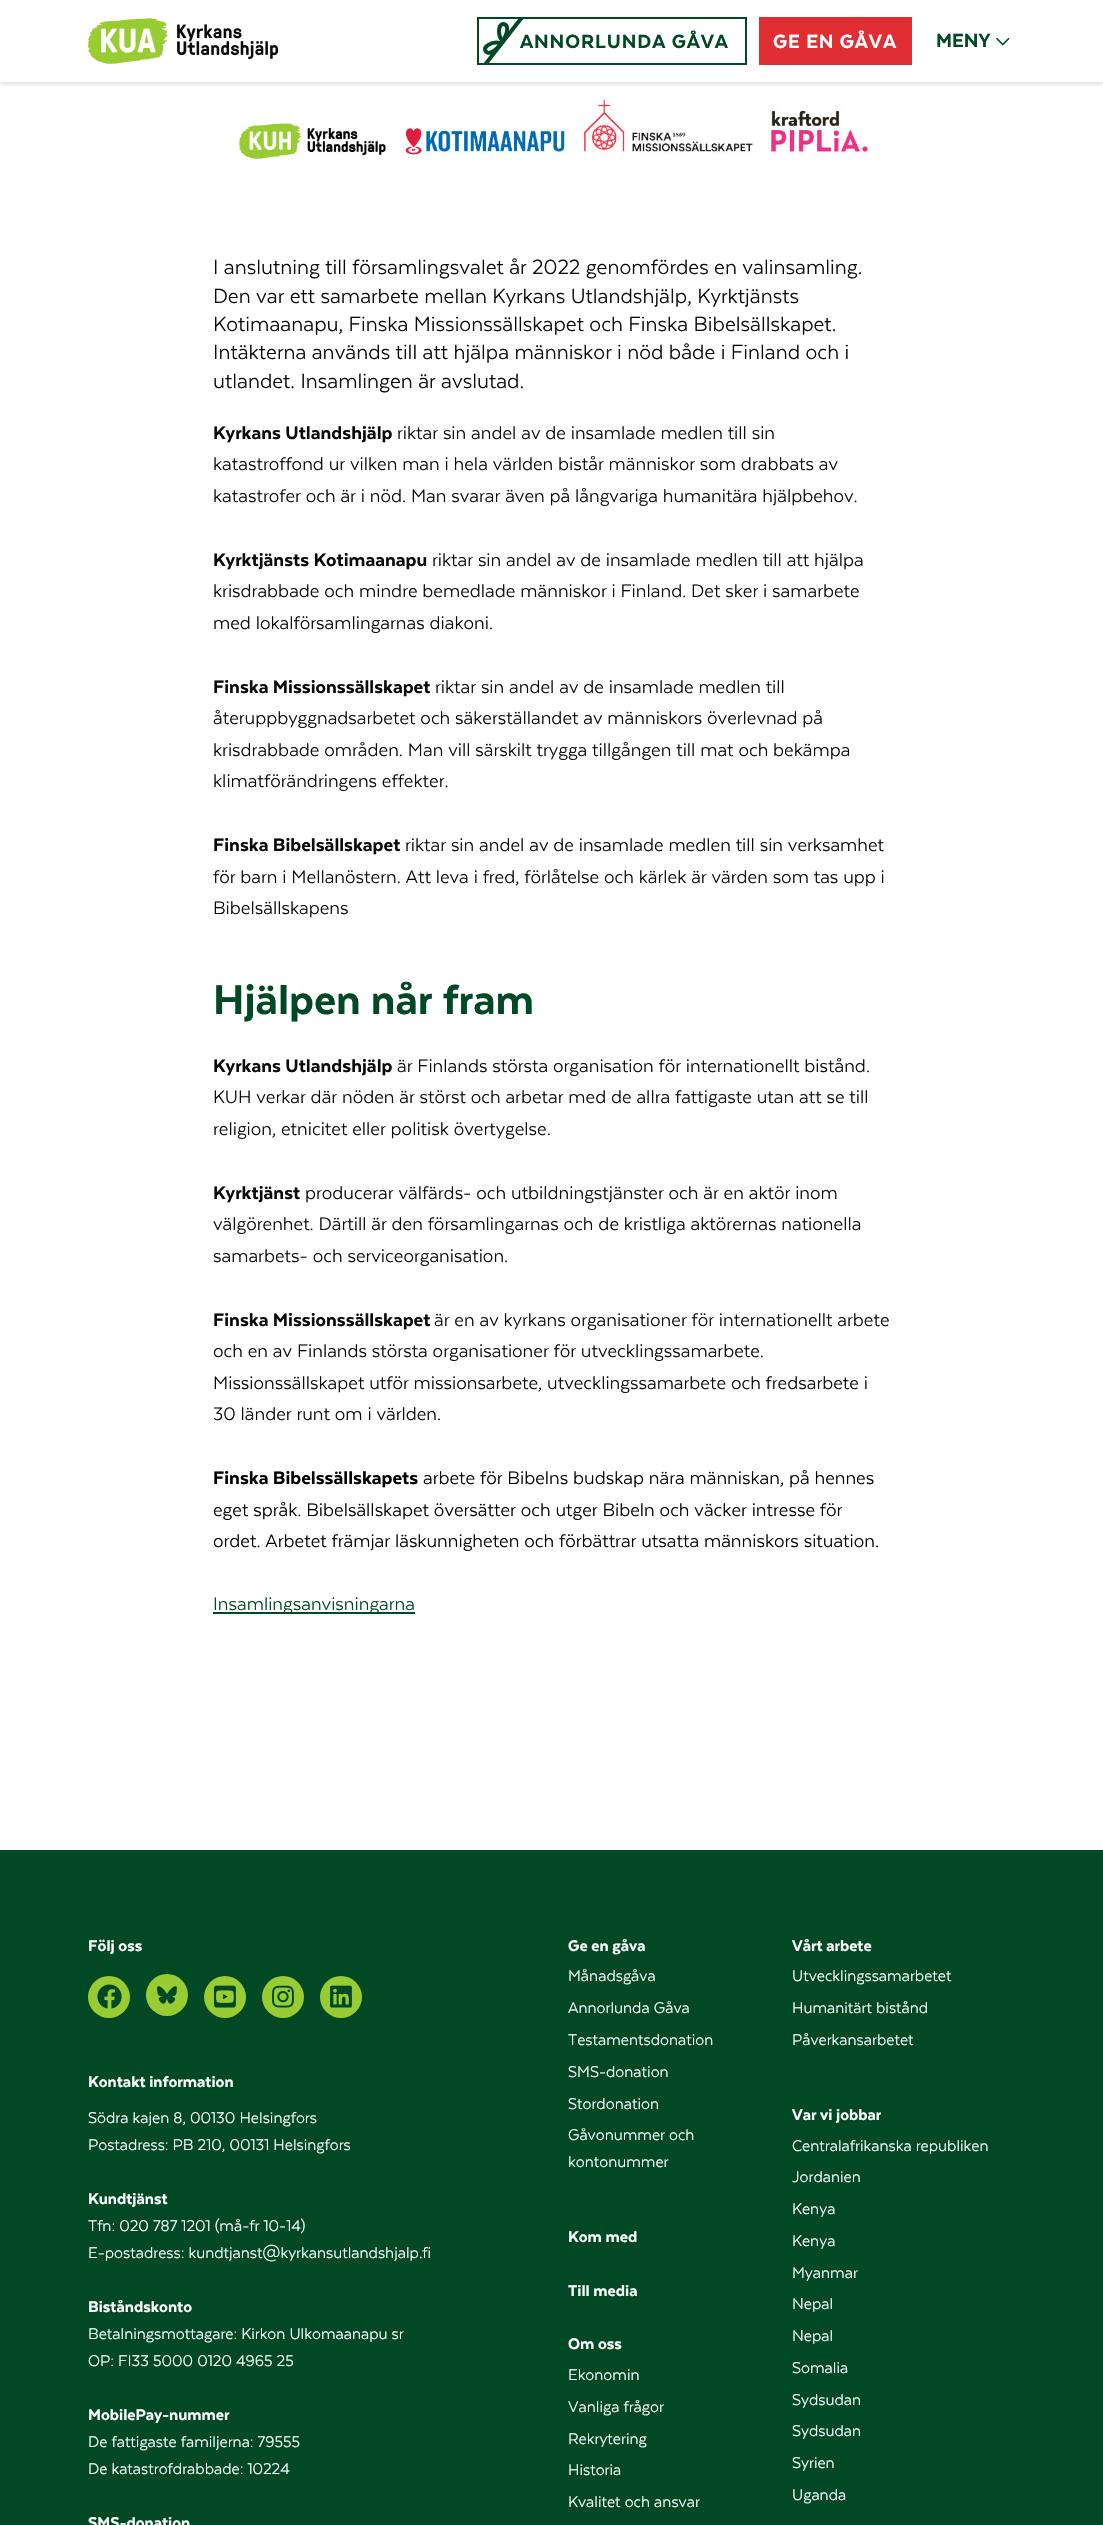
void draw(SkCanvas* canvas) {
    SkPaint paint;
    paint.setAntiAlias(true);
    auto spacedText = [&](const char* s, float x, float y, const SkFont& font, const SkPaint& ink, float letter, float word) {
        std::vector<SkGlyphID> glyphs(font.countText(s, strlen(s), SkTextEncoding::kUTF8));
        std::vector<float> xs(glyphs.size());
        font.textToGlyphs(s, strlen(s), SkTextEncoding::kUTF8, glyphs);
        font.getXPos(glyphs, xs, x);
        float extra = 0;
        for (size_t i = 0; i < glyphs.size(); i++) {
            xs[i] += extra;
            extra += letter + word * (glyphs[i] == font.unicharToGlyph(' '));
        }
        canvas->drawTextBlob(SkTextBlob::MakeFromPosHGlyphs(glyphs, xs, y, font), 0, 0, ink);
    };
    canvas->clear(0xFFFFFFFF);
    canvas->drawImageRect(SkImages::DeferredFromEncodedData(SkData::MakeFromFileName("img4.png")), SkRect::MakeXYWH(238, 82, 631, 78), SkSamplingOptions());
    paint.setColor(0x1A0A0A0A);
    paint.setMaskFilter(SkMaskFilter::MakeBlur(kNormal_SkBlurStyle, 1.5f));
    canvas->drawRect(SkRect::MakeXYWH(0, 3, 1103, 82), paint);
    paint.setMaskFilter(nullptr);
    paint.setColor(0xFFFFFFFF);
    canvas->drawRect(SkRect::MakeXYWH(0, 1, 1103, 81), paint);
    canvas->drawImageRect(SkImages::DeferredFromEncodedData(SkData::MakeFromFileName("img1.png")), SkRect::MakeXYWH(88, 18, 190, 46), SkSamplingOptions());
    canvas->drawImageRect(SkImages::DeferredFromEncodedData(SkData::MakeFromFileName("img2.png")), SkRect::MakeXYWH(483, 19, 40, 44), SkSamplingOptions());
    paint.setStyle(SkPaint::kStroke_Style);
    paint.setStrokeWidth(2);
    paint.setColor(0xFF004924);
    canvas->drawRect(SkRect::MakeXYWH(478, 18, 268, 46), paint);
    SkFont font1(fontMgr->matchFamilyStyle("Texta", SkFontStyle::Normal()), 22);
    font1.setSubpixel(true);
    paint.setStyle(SkPaint::kFill_Style);
    spacedText("ANNORLUNDA GÅVA", 520, 48, font1, paint, 0.9f, 0);
    paint.setColor(0xFFE02E33);
    canvas->drawRect(SkRect::MakeXYWH(759, 17, 153, 48), paint);
    paint.setColor(0xFFFFFFFF);
    spacedText("GE EN GÅVA", 773, 48, font1, paint, 0.9f, 0);
    paint.setColor(0xFF004924);
    canvas->drawString("MENY", 936, 47, font1, paint);
    canvas->drawImageRect(SkImages::DeferredFromEncodedData(SkData::MakeFromFileName("img3.png")), SkRect::MakeXYWH(996, 37, 14, 9), SkSamplingOptions());
    SkFont font2(fontMgr->matchFamilyStyle("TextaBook", SkFontStyle::Normal()), 23.6f);
    font2.setSubpixel(true);
    paint.setColor(0xFF0A0A0A);
    canvas->drawString("I anslutning till församlingsvalet år 2022 genomfördes en valinsamling.", 213, 274, font2, paint);
    canvas->drawString("Den var ett samarbete mellan Kyrkans Utlandshjälp, Kyrktjänsts", 213, 303, font2, paint);
    canvas->drawString("Kotimaanapu, Finska Missionssällskapet och Finska Bibelsällskapet.", 213, 331, font2, paint);
    canvas->drawString("Intäkterna används till att hjälpa människor i nöd både i Finland och i", 213, 359, font2, paint);
    canvas->drawString("utlandet. Insamlingen är avslutad.", 213, 388, font2, paint);
    SkFont font3(fontMgr->matchFamilyStyle("Texta", SkFontStyle::Normal()), 21);
    font3.setSubpixel(true);
    canvas->drawString("Kyrkans Utlandshjälp", 213, 439, font3, paint);
    SkFont font4(fontMgr->matchFamilyStyle("TextaBook", SkFontStyle::Normal()), 21);
    font4.setSubpixel(true);
    canvas->drawString("riktar sin andel av de insamlade medlen till sin", 397, 439, font4, paint);
    canvas->drawString("katastroffond ur vilken man i hela världen bistår människor som drabbats av", 213, 470, font4, paint);
    canvas->drawString("katastrofer och är i nöd. Man svarar även på långvariga humanitära hjälpbehov.", 213, 502, font4, paint);
    canvas->drawString("Kyrktjänsts Kotimaanapu", 213, 566, font3, paint);
    canvas->drawString("riktar sin andel av de insamlade medlen till att hjälpa", 432, 566, font4, paint);
    canvas->drawString("krisdrabbade och mindre bemedlade människor i Finland. Det sker i samarbete", 213, 597, font4, paint);
    canvas->drawString("med lokalförsamlingarnas diakoni.", 213, 629, font4, paint);
    canvas->drawString("Finska Missionssällskapet", 213, 693, font3, paint);
    canvas->drawString("riktar sin andel av de insamlade medlen till", 435, 693, font4, paint);
    canvas->drawString("återuppbyggnadsarbetet och säkerställandet av människors överlevnad på", 213, 724, font4, paint);
    canvas->drawString("krisdrabbade områden. Man vill särskilt trygga tillgången till mat och bekämpa", 213, 756, font4, paint);
    canvas->drawString("klimatförändringens effekter.", 213, 787, font4, paint);
    canvas->drawString("Finska Bibelsällskapet", 213, 851, font3, paint);
    canvas->drawString("riktar sin andel av de insamlade medlen till sin verksamhet", 405, 851, font4, paint);
    canvas->drawString("för barn i Mellanöstern. Att leva i fred, förlåtelse och kärlek är värden som tas upp i", 213, 883, font4, paint);
    canvas->drawString("Bibelsällskapens", 213, 914, font4, paint);
    SkFont font5(fontMgr->matchFamilyStyle("Texta", SkFontStyle::Normal()), 48);
    font5.setSubpixel(true);
    paint.setColor(0xFF004924);
    canvas->drawString("Hjälpen når fram", 213, 1014, font5, paint);
    paint.setColor(0xFF0A0A0A);
    canvas->drawString("Kyrkans Utlandshjälp", 213, 1072, font3, paint);
    canvas->drawString("är Finlands största organisation för internationellt bistånd.", 397, 1072, font4, paint);
    canvas->drawString("KUH verkar där nöden är störst och arbetar med de allra fattigaste utan att se till", 213, 1103, font4, paint);
    canvas->drawString("religion, etnicitet eller politisk övertygelse.", 213, 1135, font4, paint);
    canvas->drawString("Kyrktjänst", 213, 1199, font3, paint);
    canvas->drawString("producerar välfärds- och utbildningstjänster och är en aktör inom", 305, 1199, font4, paint);
    canvas->drawString("välgörenhet. Därtill är den församlingarnas och de kristliga aktörernas nationella", 213, 1230, font4, paint);
    canvas->drawString("samarbets- och serviceorganisation.", 213, 1262, font4, paint);
    canvas->drawString("Finska Missionssällskapet", 213, 1326, font3, paint);
    canvas->drawString("är en av kyrkans organisationer för internationellt arbete", 434, 1326, font4, paint);
    canvas->drawString("och en av Finlands största organisationer för utvecklingssamarbete.", 213, 1357, font4, paint);
    canvas->drawString("Missionssällskapet utför missionsarbete, utvecklingssamarbete och fredsarbete i", 213, 1389, font4, paint);
    canvas->drawString("30 länder runt om i världen.", 213, 1420, font4, paint);
    paint.setColor(0xFF000000);
    canvas->drawString("Finska Bibelssällskapets", 213, 1484, font3, paint);
    canvas->drawString("arbete för Bibelns budskap nära människan, på hennes", 423, 1484, font4, paint);
    canvas->drawString("eget språk. Bibelsällskapet översätter och utger Bibeln och väcker intresse för", 213, 1516, font4, paint);
    canvas->drawString("ordet. Arbetet främjar läskunnigheten och förbättrar utsatta människors situation.", 213, 1547, font4, paint);
    paint.setColor(0xFF004924);
    canvas->drawRect(SkRect::MakeXYWH(213, 1612, 202, 2), paint);
    canvas->drawString("Insamlingsanvisningarna", 213, 1610, font4, paint);
    canvas->drawRect(SkRect::MakeXYWH(0, 1850, 1103, 675), paint);
    SkFont font6(fontMgr->matchFamilyStyle("Texta", SkFontStyle::Normal()), 17.8f);
    font6.setSubpixel(true);
    paint.setColor(0xFFFFFFFF);
    canvas->drawString("Följ oss", 88, 1951, font6, paint);
    paint.setColor(0xFF99CC33);
    canvas->drawCircle(109, 1997, 21, paint);
    canvas->drawImageRect(SkImages::DeferredFromEncodedData(SkData::MakeFromFileName("img5.png")), SkRect::MakeXYWH(97, 1984, 25, 25), SkSamplingOptions());
    canvas->drawCircle(167, 1995, 21, paint);
    canvas->drawImageRect(SkImages::DeferredFromEncodedData(SkData::MakeFromFileName("img6.png")), SkRect::MakeXYWH(157, 1986, 20, 18), SkSamplingOptions());
    canvas->drawCircle(225, 1997, 21, paint);
    canvas->drawImageRect(SkImages::DeferredFromEncodedData(SkData::MakeFromFileName("img7.png")), SkRect::MakeXYWH(214, 1985, 22, 23), SkSamplingOptions());
    canvas->drawCircle(283, 1997, 21, paint);
    canvas->drawImageRect(SkImages::DeferredFromEncodedData(SkData::MakeFromFileName("img8.png")), SkRect::MakeXYWH(272, 1985, 22, 23), SkSamplingOptions());
    canvas->drawCircle(341, 1997, 21, paint);
    canvas->drawImageRect(SkImages::DeferredFromEncodedData(SkData::MakeFromFileName("img9.png")), SkRect::MakeXYWH(330, 1985, 22, 23), SkSamplingOptions());
    paint.setColor(0xFFFFFFFF);
    canvas->drawString("Kontakt information", 88, 2087, font6, paint);
    SkFont font7(fontMgr->matchFamilyStyle("TextaBook", SkFontStyle::Normal()), 17.8f);
    font7.setSubpixel(true);
    canvas->drawString("Södra kajen 8, 00130 Helsingfors", 88, 2123, font7, paint);
    canvas->drawString("Postadress: PB 210, 00131 Helsingfors", 88, 2150, font7, paint);
    canvas->drawString("Kundtjänst", 88, 2204, font6, paint);
    canvas->drawString("Tfn: 020 787 1201 (må-fr 10-14)", 88, 2231, font7, paint);
    canvas->drawString("E-postadress: kundtjanst@kyrkansutlandshjalp.fi", 88, 2258, font7, paint);
    canvas->drawString("Biståndskonto", 88, 2312, font6, paint);
    canvas->drawString("Betalningsmottagare: Kirkon Ulkomaanapu sr", 88, 2339, font7, paint);
    canvas->drawString("OP: FI33 5000 0120 4965 25", 88, 2366, font7, paint);
    canvas->drawString("MobilePay-nummer", 88, 2420, font6, paint);
    canvas->drawString("De fattigaste familjerna: 79555", 88, 2447, font7, paint);
    canvas->drawString("De katastrofdrabbade: 10224", 88, 2474, font7, paint);
    canvas->drawString("SMS-donation", 88, 2528, font6, paint);
    canvas->drawString("Ge en gåva", 568, 1951, font6, paint);
    canvas->drawString("Månadsgåva", 568, 1981, font7, paint);
    canvas->drawString("Annorlunda Gåva", 568, 2013, font7, paint);
    canvas->drawString("Testamentsdonation", 568, 2045, font7, paint);
    canvas->drawString("SMS-donation", 568, 2077, font7, paint);
    canvas->drawString("Stordonation", 568, 2109, font7, paint);
    canvas->drawString("Gåvonummer och", 568, 2140, font7, paint);
    canvas->drawString("kontonummer", 568, 2167, font7, paint);
    canvas->drawString("Vårt arbete", 792, 1951, font6, paint);
    canvas->drawString("Utvecklingssamarbetet", 792, 1981, font7, paint);
    canvas->drawString("Humanitärt bistånd", 792, 2013, font7, paint);
    canvas->drawString("Påverkansarbetet", 792, 2045, font7, paint);
    canvas->drawString("Kom med", 568, 2242, font6, paint);
    canvas->drawString("Var vi jobbar", 792, 2120, font6, paint);
    canvas->drawString("Centralafrikanska republiken", 792, 2151, font7, paint);
    canvas->drawString("Jordanien", 792, 2182, font7, paint);
    canvas->drawString("Kenya", 792, 2214, font7, paint);
    canvas->drawString("Kenya", 792, 2246, font7, paint);
    canvas->drawString("Myanmar", 792, 2278, font7, paint);
    canvas->drawString("Nepal", 792, 2309, font7, paint);
    canvas->drawString("Nepal", 792, 2341, font7, paint);
    canvas->drawString("Somalia", 792, 2373, font7, paint);
    canvas->drawString("Sydsudan", 792, 2405, font7, paint);
    canvas->drawString("Sydsudan", 792, 2436, font7, paint);
    canvas->drawString("Syrien", 792, 2468, font7, paint);
    canvas->drawString("Uganda", 792, 2500, font7, paint);
    canvas->drawString("Till media", 568, 2296, font6, paint);
    canvas->drawString("Om oss", 568, 2349, font6, paint);
    canvas->drawString("Ekonomin", 568, 2380, font7, paint);
    canvas->drawString("Vanliga frågor", 568, 2412, font7, paint);
    canvas->drawString("Rekrytering", 568, 2444, font7, paint);
    canvas->drawString("Historia", 568, 2475, font7, paint);
    canvas->drawString("Kvalitet och ansvar", 568, 2507, font7, paint);
}
